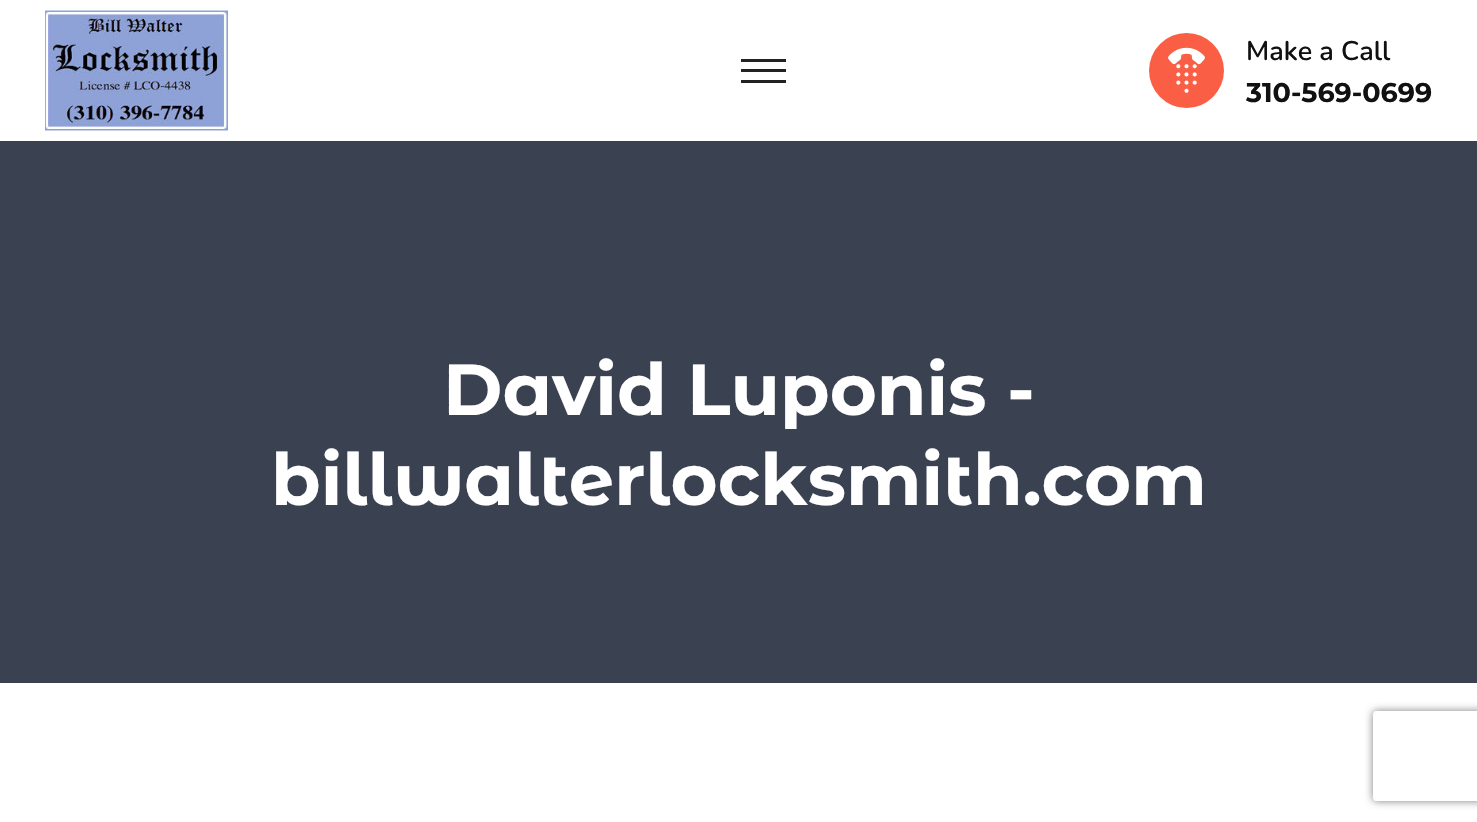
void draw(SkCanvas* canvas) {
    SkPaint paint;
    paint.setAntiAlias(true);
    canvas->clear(0xFFFFFFFF);
    canvas->drawImageRect(SkImages::DeferredFromEncodedData(SkData::MakeFromFileName("img1.png")), SkRect::MakeXYWH(45, 10, 183, 121), SkSamplingOptions());
    paint.setColor(0xFF222222);
    canvas->drawRect(SkRect::MakeXYWH(741, 59, 45, 3), paint);
    canvas->drawRect(SkRect::MakeXYWH(741, 69, 45, 3), paint);
    canvas->drawRect(SkRect::MakeXYWH(741, 80, 45, 3), paint);
    paint.setColor(0xFFFA5E44);
    canvas->drawCircle(1186.5f, 70.5f, 37.5f, paint);
    canvas->drawImageRect(SkImages::DeferredFromEncodedData(SkData::MakeFromFileName("img2.png")), SkRect::MakeXYWH(1168, 47, 37, 46), SkSamplingOptions());
    SkFont font1(fontMgr->matchFamilyStyle("Nunito", SkFontStyle(600, SkFontStyle::kNormal_Width, SkFontStyle::kUpright_Slant)), 27);
    font1.setSubpixel(true);
    paint.setColor(0xFF111111);
    canvas->drawString("Make a Call", 1246, 60, font1, paint);
    SkFont font2(fontMgr->matchFamilyStyle("Montserrat Alternates", SkFontStyle::Bold()), 27);
    font2.setSubpixel(true);
    canvas->drawString("310-569-0699", 1246, 102, font2, paint);
    paint.setColor(0xFF3A4151);
    canvas->drawRect(SkRect::MakeXYWH(0, 141, 1477, 542), paint);
    SkFont font3(fontMgr->matchFamilyStyle("Montserrat Alternates", SkFontStyle::Bold()), 72);
    font3.setSubpixel(true);
    paint.setColor(0xFFFFFFFF);
    canvas->drawString("David Luponis -", 443, 415, font3, paint);
    canvas->drawString("billwalterlocksmith.com", 271, 505, font3, paint);
    canvas->save();
    canvas->clipPath(SkPathBuilder(SkPathFillType::kEvenOdd).moveTo(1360, 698).lineTo(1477, 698).lineTo(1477, 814).lineTo(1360, 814).close().moveTo(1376, 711).lineTo(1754, 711).cubicTo(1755.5f, 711, 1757, 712.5f, 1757, 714).lineTo(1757, 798).cubicTo(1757, 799.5f, 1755.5f, 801, 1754, 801).lineTo(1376, 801).cubicTo(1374.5f, 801, 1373, 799.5f, 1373, 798).lineTo(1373, 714).cubicTo(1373, 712.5f, 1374.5f, 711, 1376, 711).close().detach(), true);
    paint.setColor(0xFF808080);
    paint.setMaskFilter(SkMaskFilter::MakeBlur(kNormal_SkBlurStyle, 4));
    canvas->drawRoundRect(SkRect::MakeXYWH(1373, 711, 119, 90), 3, 3, paint);
    paint.setMaskFilter(nullptr);
    canvas->restore();
}
